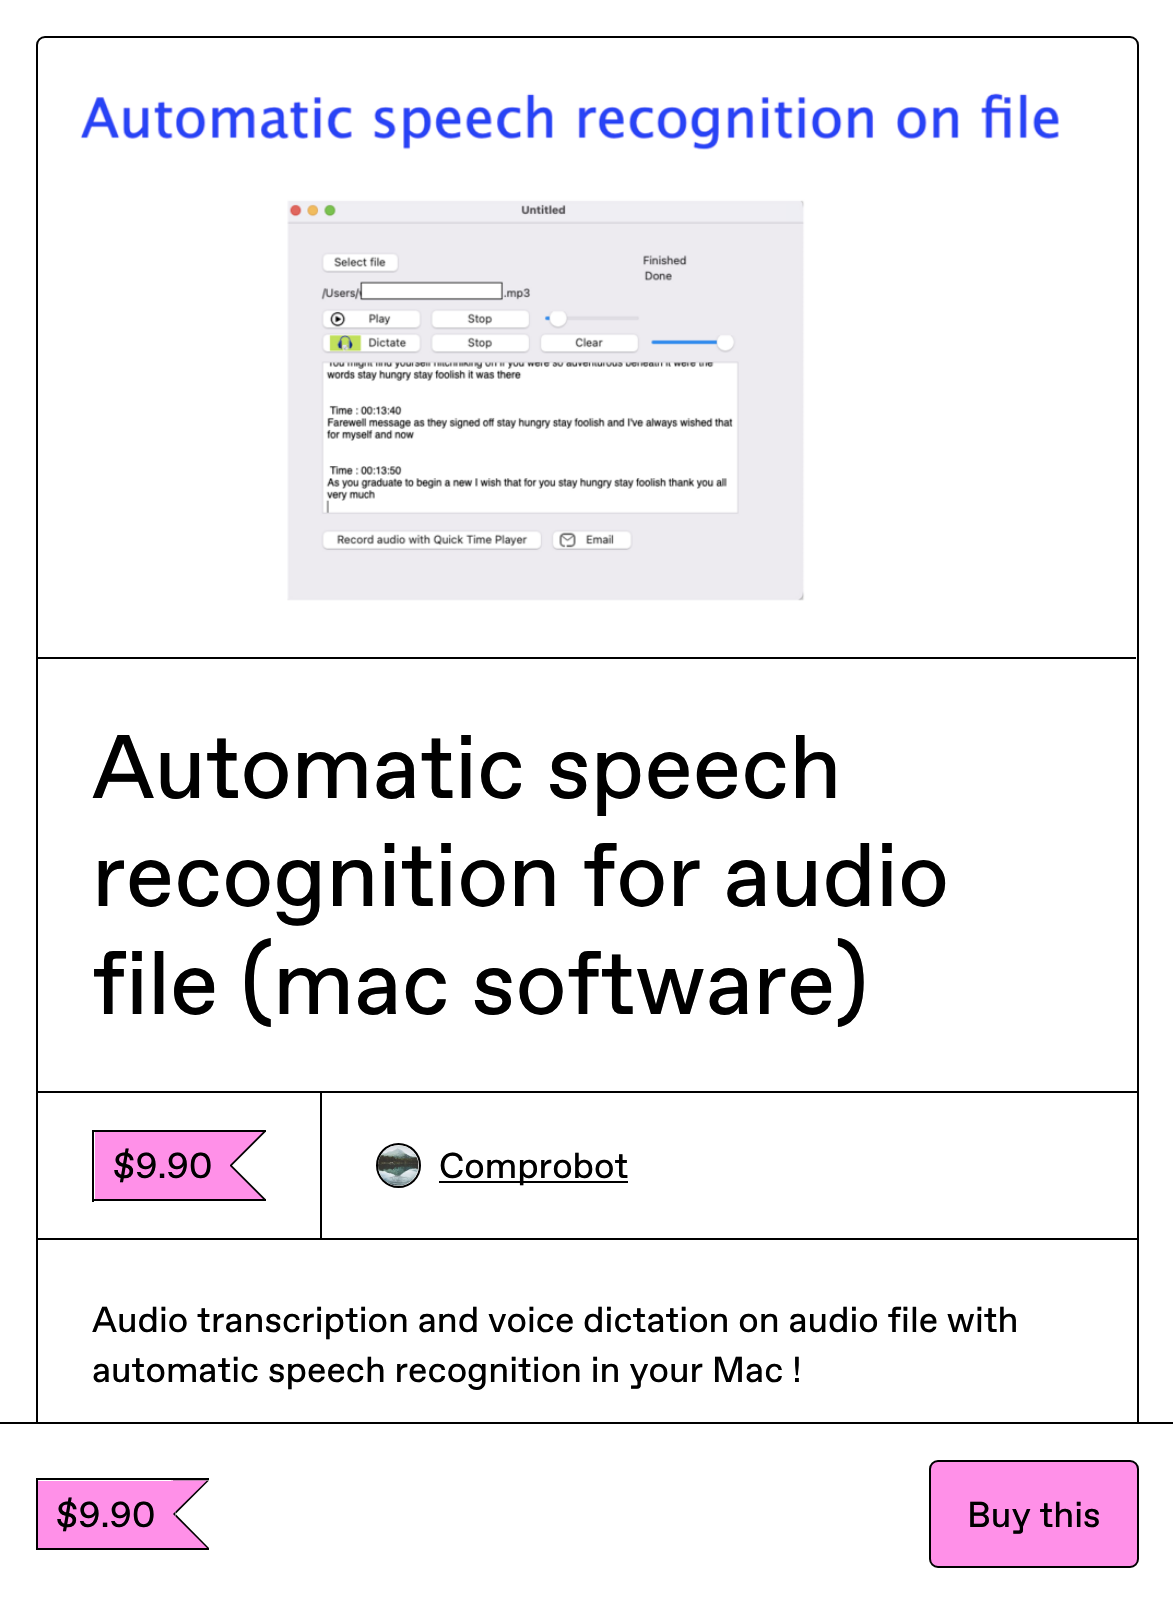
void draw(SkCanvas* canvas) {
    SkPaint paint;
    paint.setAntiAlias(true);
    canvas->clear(0xFFFFFFFF);
    paint.setStyle(SkPaint::kStroke_Style);
    paint.setStrokeWidth(2);
    paint.setColor(0xFF000000);
    canvas->drawRoundRect(SkRect::MakeXYWH(37, 37, 1101, 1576), 8, 8, paint);
    paint.setStyle(SkPaint::kFill_Style);
    canvas->drawRect(SkRect::MakeXYWH(38, 657, 1098, 2), paint);
    canvas->drawImageRect(SkImages::DeferredFromEncodedData(SkData::MakeFromFileName("img1.png")), SkRect::MakeXYWH(80, 93, 979, 508), SkSamplingOptions());
    SkFont font1(fontMgr->matchFamilyStyle("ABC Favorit", SkFontStyle::Normal()), 90);
    font1.setSubpixel(true);
    canvas->drawString("Automatic speech", 92, 798, font1, paint);
    canvas->drawString("recognition for audio", 92, 906, font1, paint);
    canvas->drawString("file (mac software)", 92, 1014, font1, paint);
    paint.setStyle(SkPaint::kStroke_Style);
    canvas->drawRect(SkRect::MakeXYWH(37, 1092, 284, 147), paint);
    paint.setStyle(SkPaint::kFill_Style);
    canvas->drawRect(SkRect::MakeXYWH(92, 1130, 174, 2), paint);
    canvas->drawRect(SkRect::MakeXYWH(92, 1199, 174, 2), paint);
    canvas->drawRect(SkRect::MakeXYWH(92, 1130, 2, 72), paint);
    paint.setColor(0xFFFF90E8);
    canvas->drawRect(SkRect::MakeXYWH(95, 1132, 135, 67), paint);
    paint.setColor(0xFF000000);
    canvas->drawPath(SkPathBuilder().moveTo(229.5f, 1132).lineTo(265.5f, 1132).lineTo(232, 1165.5f).close().detach(), paint);
    canvas->drawPath(SkPathBuilder().moveTo(265.5f, 1199).lineTo(229.5f, 1199).lineTo(232, 1165.5f).close().detach(), paint);
    canvas->drawRect(SkRect::MakeXYWH(230, 1163, 2, 5), paint);
    paint.setColor(0xFFFF90E8);
    canvas->drawPath(SkPathBuilder().moveTo(227, 1132).lineTo(263, 1132).lineTo(229.5f, 1165.5f).close().detach(), paint);
    canvas->drawPath(SkPathBuilder().moveTo(263, 1199).lineTo(227, 1199).lineTo(229.5f, 1165.5f).close().detach(), paint);
    SkFont font2(fontMgr->matchFamilyStyle("ABC Favorit", SkFontStyle::Normal()), 36);
    font2.setSubpixel(true);
    paint.setColor(0xFF000000);
    canvas->drawString("$9.90", 113, 1178, font2, paint);
    paint.setStyle(SkPaint::kStroke_Style);
    canvas->drawRect(SkRect::MakeXYWH(321, 1092, 817, 147), paint);
    canvas->drawCircle(398.5f, 1165.5f, 21.5f, paint);
    canvas->drawImageRect(SkImages::DeferredFromEncodedData(SkData::MakeFromFileName("img2.png")), SkRect::MakeXYWH(378, 1145, 41, 41), SkSamplingOptions());
    paint.setStyle(SkPaint::kFill_Style);
    canvas->drawRect(SkRect::MakeXYWH(439, 1181, 189, 2), paint);
    canvas->drawString("Comprobot", 439, 1178, font2, paint);
    canvas->drawString("Audio transcription and voice dictation on audio file with", 92, 1332, font2, paint);
    canvas->drawString("automatic speech recognition in your Mac !", 92, 1382, font2, paint);
    canvas->drawPath(SkPathBuilder().moveTo(0, 1422).lineTo(0, 1424).lineTo(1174, 1424).lineTo(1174, 1602).lineTo(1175, 1602).lineTo(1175, 1422).close().detach(), paint);
    paint.setColor(0xFFFFFFFF);
    canvas->drawRect(SkRect::MakeXYWH(36, 1424, 1103, 179), paint);
    paint.setColor(0xFF000000);
    canvas->drawRect(SkRect::MakeXYWH(36, 1478, 173, 2), paint);
    canvas->drawRect(SkRect::MakeXYWH(36, 1548, 173, 2), paint);
    canvas->drawRect(SkRect::MakeXYWH(36, 1478, 2, 72), paint);
    paint.setColor(0xFFFF90E8);
    canvas->drawRect(SkRect::MakeXYWH(38, 1481, 135, 67), paint);
    paint.setColor(0xFF000000);
    canvas->drawPath(SkPathBuilder().moveTo(173, 1480.5f).lineTo(209, 1480.5f).lineTo(175.5f, 1514).close().detach(), paint);
    canvas->drawPath(SkPathBuilder().moveTo(209, 1548).lineTo(173, 1548).lineTo(175.5f, 1514).close().detach(), paint);
    canvas->drawRect(SkRect::MakeXYWH(173, 1512, 2, 4), paint);
    paint.setColor(0xFFFF90E8);
    canvas->drawPath(SkPathBuilder().moveTo(171, 1480.5f).lineTo(207, 1480.5f).lineTo(173, 1514).close().detach(), paint);
    canvas->drawPath(SkPathBuilder().moveTo(207, 1548).lineTo(171, 1548).lineTo(173, 1514).close().detach(), paint);
    paint.setColor(0xFF000000);
    canvas->drawString("$9.90", 56, 1527, font2, paint);
    paint.setColor(0xFFFF90E8);
    canvas->drawRoundRect(SkRect::MakeXYWH(930, 1461, 208, 106), 8, 8, paint);
    paint.setStyle(SkPaint::kStroke_Style);
    paint.setColor(0xFF000000);
    canvas->drawRoundRect(SkRect::MakeXYWH(930, 1461, 208, 106), 8, 8, paint);
    paint.setStyle(SkPaint::kFill_Style);
    canvas->drawString("Buy this", 967, 1527, font2, paint);
}
